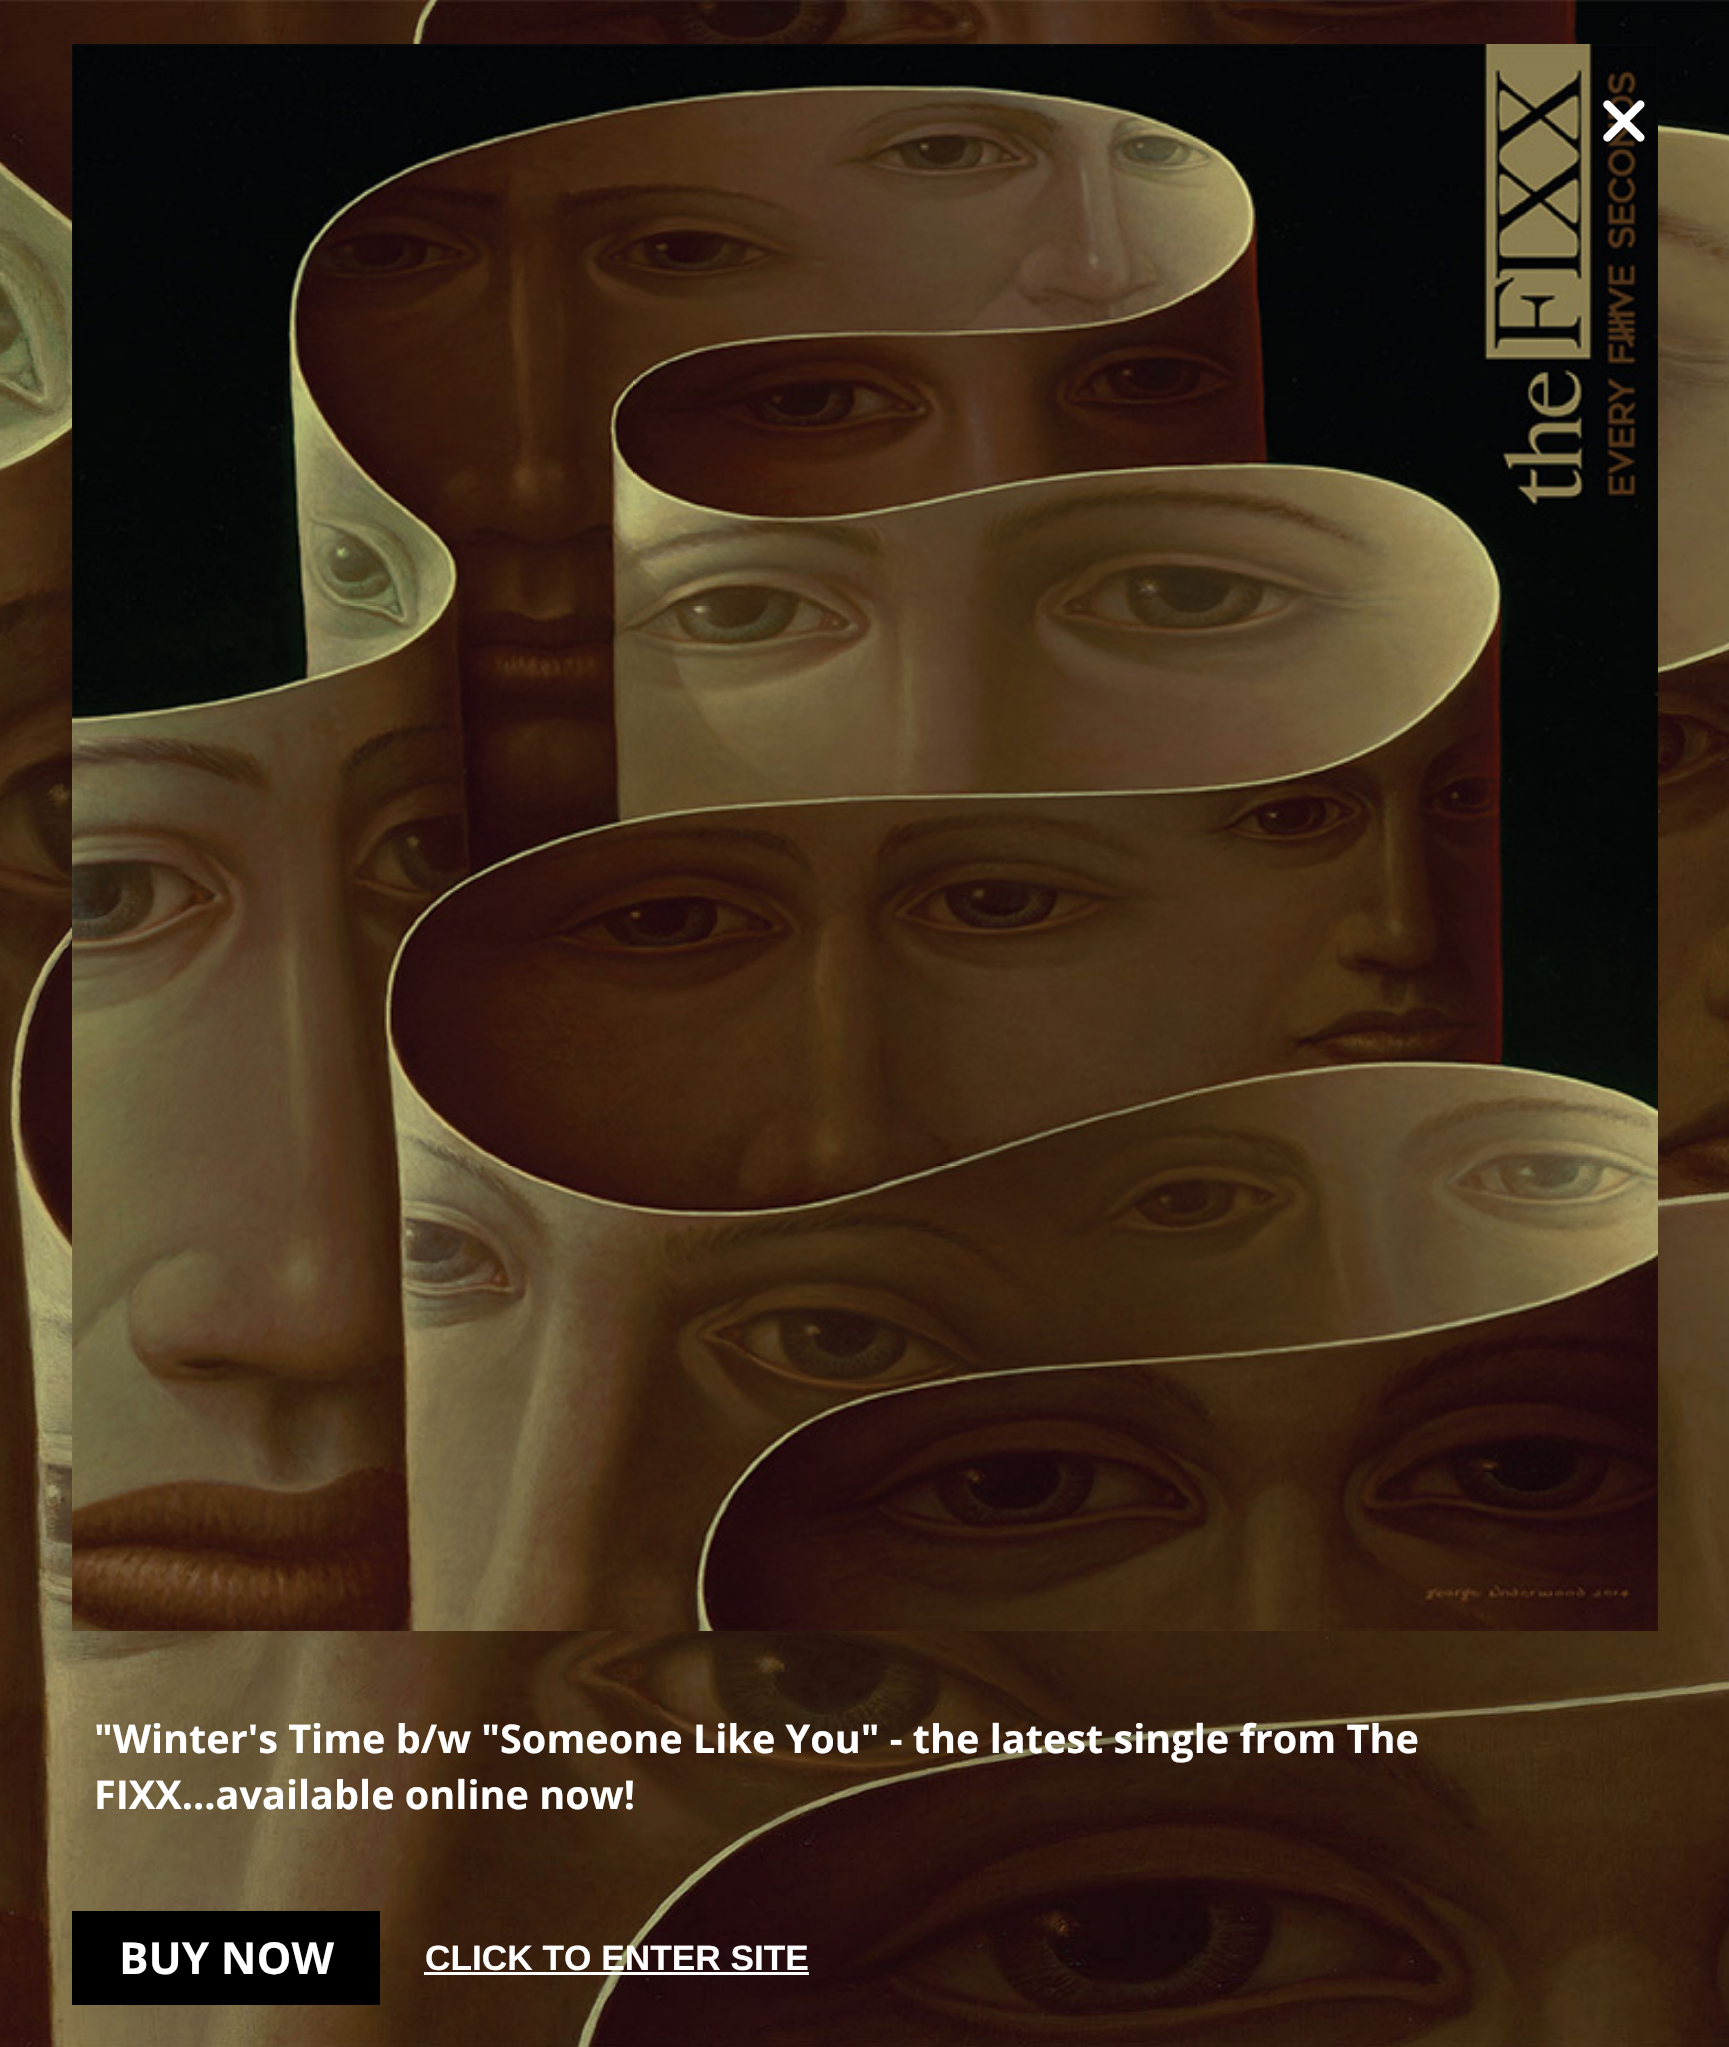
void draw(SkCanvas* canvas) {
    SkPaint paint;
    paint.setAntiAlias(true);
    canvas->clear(0xFFFFFFFF);
    canvas->drawImageRect(SkImages::DeferredFromEncodedData(SkData::MakeFromFileName("img1.png")), SkRect::MakeXYWH(0, 0, 1729, 2047), SkSamplingOptions());
    canvas->drawImageRect(SkImages::DeferredFromEncodedData(SkData::MakeFromFileName("img3.png")), SkRect::MakeXYWH(72, 44, 1586, 1587), SkSamplingOptions());
    canvas->drawImageRect(SkImages::DeferredFromEncodedData(SkData::MakeFromFileName("img2.png")), SkRect::MakeXYWH(1603, 100, 42, 42), SkSamplingOptions());
    SkFont font1(fontMgr->matchFamilyStyle("Open Sans", SkFontStyle::Bold()), 39.6f);
    font1.setSubpixel(true);
    paint.setColor(0xFFFFFFFF);
    canvas->drawString("\"Winter's Time b/w \"Someone Like You\" - the latest single from The", 94, 1753, font1, paint);
    canvas->drawString("FIXX...available online now!", 94, 1809, font1, paint);
    paint.setColor(0xFF000000);
    canvas->drawRect(SkRect::MakeXYWH(72, 1911, 308, 94), paint);
    SkFont font2(fontMgr->matchFamilyStyle("Open Sans", SkFontStyle::Bold()), 44);
    font2.setSubpixel(true);
    paint.setColor(0xFFFFFFFF);
    canvas->drawString("BUY NOW", 119, 1974, font2, paint);
    SkFont font3(fontMgr->matchFamilyStyle("Liberation Sans", SkFontStyle::Bold()), 35.25f);
    font3.setSubpixel(true);
    canvas->drawString("CLICK TO ENTER SITE", 425, 1970, font3, paint);
    canvas->drawRect(SkRect::MakeXYWH(424, 1972, 385, 3), paint);
}
